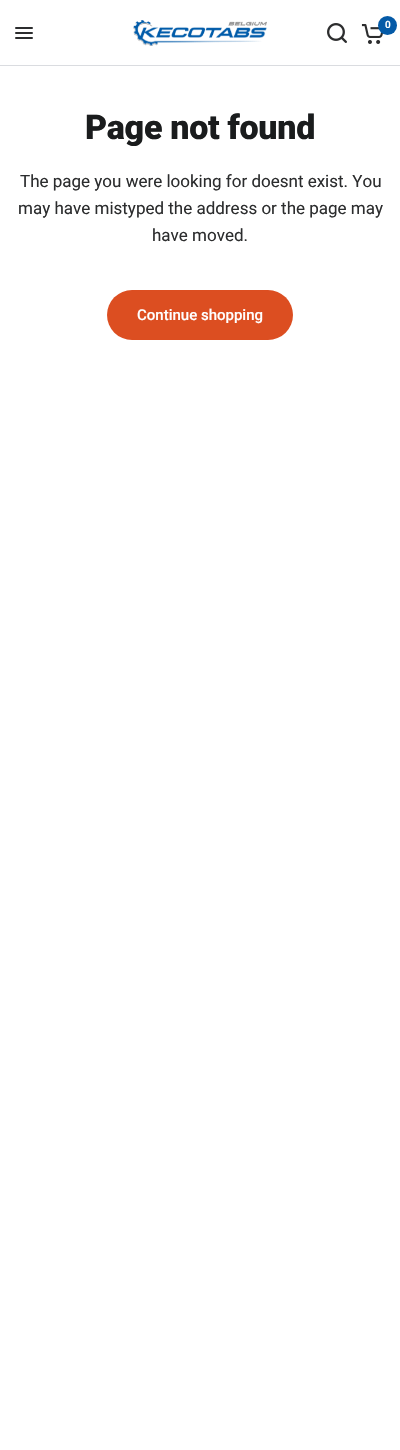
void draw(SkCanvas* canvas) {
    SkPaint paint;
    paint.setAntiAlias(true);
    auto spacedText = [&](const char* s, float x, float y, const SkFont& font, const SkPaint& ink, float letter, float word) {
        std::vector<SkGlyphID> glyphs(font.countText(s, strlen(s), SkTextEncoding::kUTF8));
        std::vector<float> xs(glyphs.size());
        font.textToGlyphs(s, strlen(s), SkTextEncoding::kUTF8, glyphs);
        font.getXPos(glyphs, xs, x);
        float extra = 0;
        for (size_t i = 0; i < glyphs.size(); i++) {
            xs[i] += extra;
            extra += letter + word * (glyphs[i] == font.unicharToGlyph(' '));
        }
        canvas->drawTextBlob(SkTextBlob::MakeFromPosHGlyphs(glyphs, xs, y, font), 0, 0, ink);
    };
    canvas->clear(0xFFFFFFFF);
    canvas->drawImageRect(SkImages::DeferredFromEncodedData(SkData::MakeFromFileName("img1.png")), SkRect::MakeXYWH(133, 20, 134, 26), SkSamplingOptions());
    canvas->drawImageRect(SkImages::DeferredFromEncodedData(SkData::MakeFromFileName("img2.png")), SkRect::MakeXYWH(327, 23, 20, 20), SkSamplingOptions());
    canvas->drawImageRect(SkImages::DeferredFromEncodedData(SkData::MakeFromFileName("img3.png")), SkRect::MakeXYWH(361, 24, 22, 20), SkSamplingOptions());
    paint.setColor(0xFF045AA7);
    canvas->drawCircle(387.5f, 25.5f, 9.5f, paint);
    SkFont font1(fontMgr->matchFamilyStyle("Roboto", SkFontStyle(600, SkFontStyle::kNormal_Width, SkFontStyle::kUpright_Slant)), 10);
    font1.setSubpixel(true);
    paint.setColor(0xFFFFFFFF);
    canvas->drawString("0", 385, 28, font1, paint);
    paint.setColor(0xFF2C2D2E);
    canvas->drawRoundRect(SkRect::MakeXYWH(15, 27, 18, 2), 1, 1, paint);
    canvas->drawRoundRect(SkRect::MakeXYWH(15, 32, 18, 2), 1, 1, paint);
    canvas->drawRoundRect(SkRect::MakeXYWH(15, 37, 18, 2), 1, 1, paint);
    paint.setColor(0xFFDADCE0);
    canvas->drawRect(SkRect::MakeXYWH(0, 65, 400, 1), paint);
    SkFont font2(fontMgr->matchFamilyStyle("Roboto", SkFontStyle(900, SkFontStyle::kNormal_Width, SkFontStyle::kUpright_Slant)), 34);
    font2.setSubpixel(true);
    paint.setColor(0xFF1A1C1D);
    spacedText("Page not found", 85, 139, font2, paint, -0.3f, 0);
    SkFont font3(fontMgr->matchFamilyStyle("Roboto", SkFontStyle::Normal()), 17);
    font3.setSubpixel(true);
    paint.setColor(0xFF2C2D2E);
    canvas->drawString("The page you were looking for doesnt exist. You", 20, 187, font3, paint);
    canvas->drawString("may have mistyped the address or the page may", 18, 214, font3, paint);
    canvas->drawString("have moved.", 152, 241, font3, paint);
    paint.setColor(0xFFDC4E21);
    canvas->drawRoundRect(SkRect::MakeXYWH(107, 290, 186, 50), 25, 25, paint);
    SkFont font4(fontMgr->matchFamilyStyle("Roboto", SkFontStyle(500, SkFontStyle::kNormal_Width, SkFontStyle::kUpright_Slant)), 15);
    font4.setSubpixel(true);
    paint.setColor(0xFFFFFFFF);
    canvas->drawString("Continue shopping", 137, 320, font4, paint);
}
